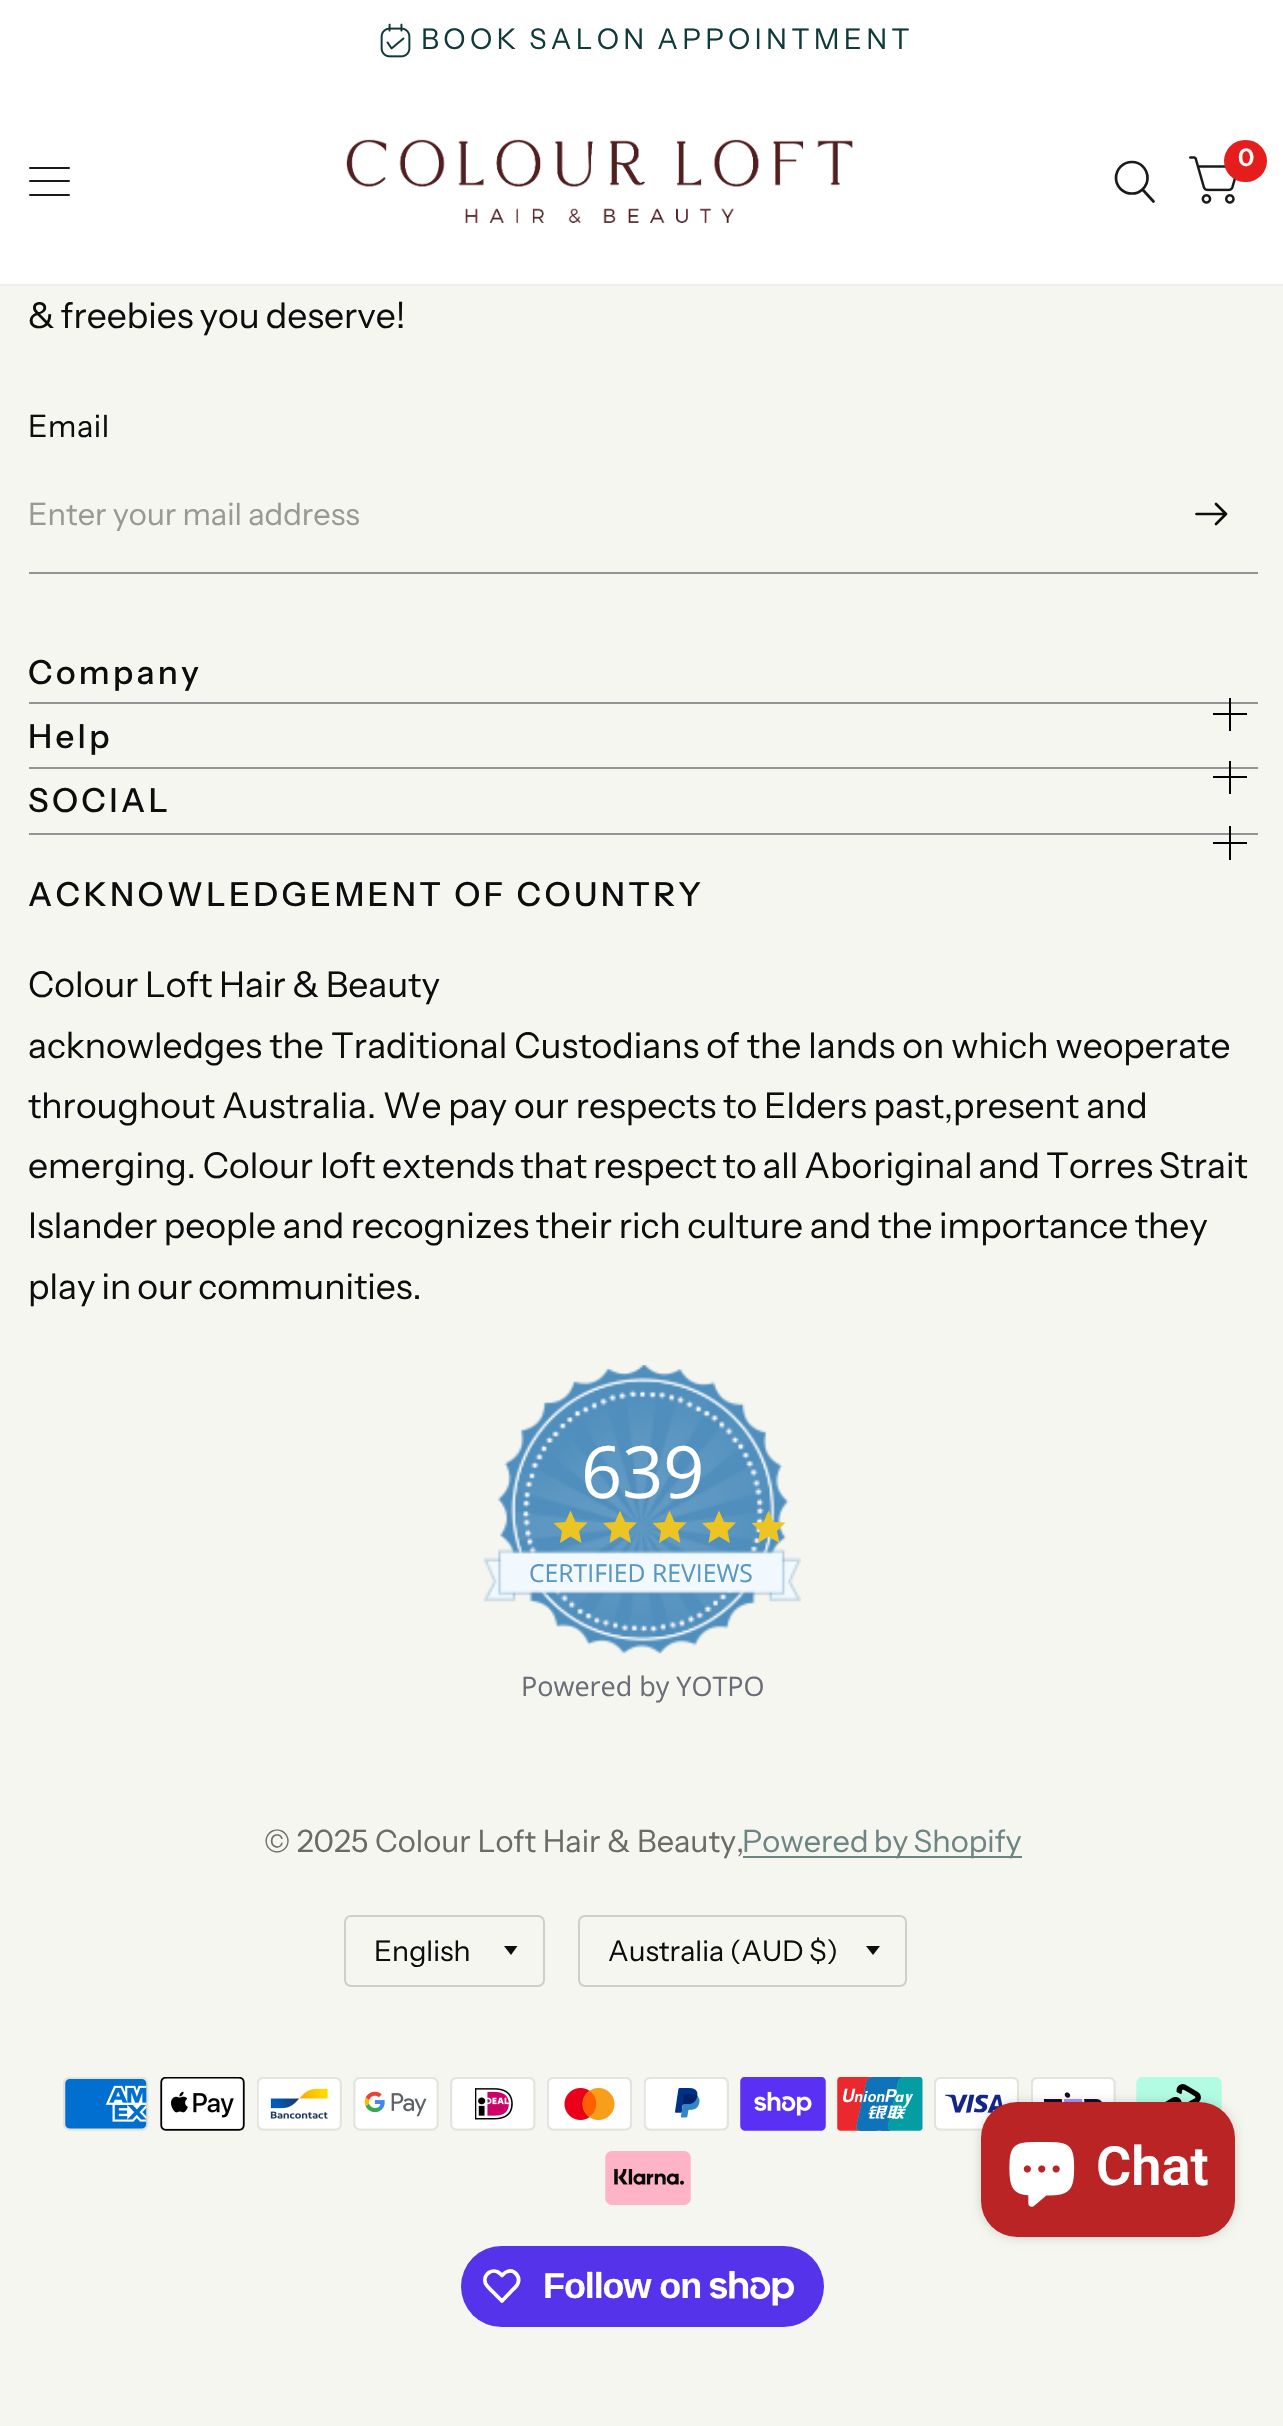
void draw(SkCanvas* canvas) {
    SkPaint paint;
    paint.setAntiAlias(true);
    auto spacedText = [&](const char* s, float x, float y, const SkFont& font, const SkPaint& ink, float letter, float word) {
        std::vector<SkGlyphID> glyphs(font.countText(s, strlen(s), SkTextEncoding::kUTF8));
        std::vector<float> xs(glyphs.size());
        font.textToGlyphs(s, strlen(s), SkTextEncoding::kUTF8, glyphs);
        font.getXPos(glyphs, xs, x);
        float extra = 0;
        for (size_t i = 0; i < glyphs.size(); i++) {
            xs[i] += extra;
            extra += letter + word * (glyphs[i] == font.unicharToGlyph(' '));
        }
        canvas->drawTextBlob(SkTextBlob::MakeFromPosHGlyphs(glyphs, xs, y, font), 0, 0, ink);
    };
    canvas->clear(0xFFF6F6F0);
    paint.setColor(0xFFFFFFFF);
    canvas->drawRect(SkRect::MakeXYWH(0, 0, 1283, 284), paint);
    paint.setColor(0xFFEEEEEE);
    canvas->drawRect(SkRect::MakeXYWH(0, 284, 1283, 2), paint);
    canvas->drawImageRect(SkImages::DeferredFromEncodedData(SkData::MakeFromFileName("img1.png")), SkRect::MakeXYWH(380, 23, 31, 35), SkSamplingOptions());
    SkFont font1(fontMgr->matchFamilyStyle("Instrument Sans", SkFontStyle::Normal()), 28.4f);
    font1.setSubpixel(true);
    paint.setColor(0xFF103A3A);
    spacedText("BOOK SALON APPOINTMENT", 421, 49, font1, paint, 4.25f, -1);
    canvas->drawImageRect(SkImages::DeferredFromEncodedData(SkData::MakeFromFileName("img2.png")), SkRect::MakeXYWH(346, 139, 507, 84), SkSamplingOptions());
    canvas->drawImageRect(SkImages::DeferredFromEncodedData(SkData::MakeFromFileName("img3.png")), SkRect::MakeXYWH(1189, 156, 47, 48), SkSamplingOptions());
    paint.setColor(0xFFE51D1D);
    canvas->drawRoundRect(SkRect::MakeXYWH(1224, 140, 43, 42), 21, 21, paint);
    SkFont font2(fontMgr->matchFamilyStyle("Instrument Sans", SkFontStyle(600, SkFontStyle::kNormal_Width, SkFontStyle::kUpright_Slant)), 24);
    font2.setSubpixel(true);
    paint.setColor(0xFFFFFFFF);
    canvas->drawString("0", 1238, 166, font2, paint);
    paint.setStyle(SkPaint::kStroke_Style);
    paint.setStrokeWidth(2.7f);
    paint.setStrokeCap(SkPaint::kRound_Cap);
    paint.setStrokeJoin(SkPaint::kRound_Join);
    paint.setColor(0xFF1A1A1A);
    canvas->drawPath(SkPathBuilder().moveTo(1143, 190).lineTo(1153.5f, 201.5f).moveTo(1147.5f, 178).cubicTo(1147.5f, 186.5f, 1140.5f, 193.5f, 1132, 193.5f).cubicTo(1123, 193.5f, 1116, 186.5f, 1116, 178).cubicTo(1116, 169, 1123, 162, 1132, 162).cubicTo(1140.5f, 162, 1147.5f, 169, 1147.5f, 178).close().detach(), paint);
    paint.setStyle(SkPaint::kFill_Style);
    canvas->drawRoundRect(SkRect::MakeXYWH(29, 167, 41, 2), 1, 1, paint);
    canvas->drawRoundRect(SkRect::MakeXYWH(29, 180, 41, 2), 1, 1, paint);
    canvas->drawRoundRect(SkRect::MakeXYWH(29, 194, 41, 2), 1, 1, paint);
    SkFont font3(fontMgr->matchFamilyStyle("Instrument Sans", SkFontStyle::Normal()), 35.45f);
    font3.setSubpixel(true);
    paint.setColor(0xFF0C0D0D);
    spacedText("& freebies you deserve!", 28, 328, font3, paint, 0, -1);
    SkFont font4(fontMgr->matchFamilyStyle("Instrument Sans", SkFontStyle::Normal()), 30.75f);
    font4.setSubpixel(true);
    spacedText("Email", 28, 437, font4, paint, 0.5f, 0);
    paint.setColor(0xFF939393);
    canvas->drawRect(SkRect::MakeXYWH(29, 572, 1229, 2), paint);
    canvas->save();
    canvas->clipRect(SkRect::MakeXYWH(29, 495, 1139, 36));
    paint.setColor(0xFF989995);
    canvas->drawString("Enter your mail address", 28, 525, font4, paint);
    canvas->restore();
    paint.setStyle(SkPaint::kStroke_Style);
    paint.setColor(0xFF0C0D0D);
    canvas->drawPath(SkPathBuilder().moveTo(1196.5f, 514).lineTo(1223.5f, 514).moveTo(1216, 504).lineTo(1226, 514).lineTo(1216, 524).detach(), paint);
    paint.setStyle(SkPaint::kFill_Style);
    paint.setColor(0xFF939393);
    canvas->drawRect(SkRect::MakeXYWH(29, 702, 1229, 2), paint);
    SkFont font5(fontMgr->matchFamilyStyle("Instrument Sans", SkFontStyle(500, SkFontStyle::kNormal_Width, SkFontStyle::kUpright_Slant)), 33.1f);
    font5.setSubpixel(true);
    paint.setColor(0xFF0C0D0D);
    spacedText("Company", 28, 684, font5, paint, 3.3f, 0);
    paint.setColor(0xFF000000);
    canvas->drawRect(SkRect::MakeXYWH(1213, 713, 34, 2), paint);
    canvas->drawRect(SkRect::MakeXYWH(1229, 698, 2, 33), paint);
    paint.setColor(0xFF939393);
    canvas->drawRect(SkRect::MakeXYWH(29, 767, 1229, 2), paint);
    paint.setColor(0xFF0C0D0D);
    spacedText("Help", 28, 748, font5, paint, 3.3f, 0);
    paint.setColor(0xFF000000);
    canvas->drawRect(SkRect::MakeXYWH(1213, 776, 34, 2), paint);
    canvas->drawRect(SkRect::MakeXYWH(1229, 761, 2, 33), paint);
    paint.setColor(0xFF939393);
    canvas->drawRect(SkRect::MakeXYWH(29, 833, 1229, 2), paint);
    paint.setColor(0xFF0C0D0D);
    spacedText("SOCIAL", 28, 812, font5, paint, 3.3f, 0);
    paint.setColor(0xFF000000);
    canvas->drawRect(SkRect::MakeXYWH(1213, 842, 34, 2), paint);
    canvas->drawRect(SkRect::MakeXYWH(1229, 826, 2, 34), paint);
    paint.setColor(0xFF0C0D0D);
    spacedText("ACKNOWLEDGEMENT OF COUNTRY", 28, 906, font5, paint, 3.3f, 0);
    spacedText("Colour Loft Hair & Beauty", 28, 997, font3, paint, 0, -0.5f);
    canvas->drawString("acknowledges the Traditional Custodians of the lands on which weoperate", 28, 1058, font3, paint);
    spacedText("throughout Australia. We pay our respects to Elders past,", 28, 1118, font3, paint, 0, -0.25f);
    canvas->drawString("present and", 953, 1118, font3, paint);
    canvas->drawString("emerging. Colour loft", 28, 1178, font3, paint);
    spacedText("extends that respect to all Aboriginal and Torres Strait", 382, 1178, font3, paint, 0, -1.25f);
    spacedText("Islander people and recognizes their rich culture and the importance they", 28, 1238, font3, paint, 0, -0.5f);
    spacedText("play in our communities.", 28, 1299, font3, paint, 0, -1);
    canvas->drawImageRect(SkImages::DeferredFromEncodedData(SkData::MakeFromFileName("img4.png")), SkRect::MakeXYWH(483, 1365, 318, 289), SkSamplingOptions());
    SkFont font6(fontMgr->matchFamilyStyle("Open Sans", SkFontStyle::Normal()), 72);
    font6.setSubpixel(true);
    paint.setColor(0xFFFFFFFF);
    canvas->drawString("639", 581, 1498, font6, paint);
    paint.setColor(0xFFECC525);
    canvas->drawPath(SkPathBuilder().moveTo(581.5f, 1543).lineTo(570.5f, 1536.5f).lineTo(560, 1543).lineTo(562, 1531).lineTo(553.5f, 1523).lineTo(565.5f, 1522).lineTo(570.5f, 1510.5f).lineTo(575.5f, 1522).lineTo(587.5f, 1522.5f).lineTo(579, 1531).close().detach(), paint);
    canvas->drawPath(SkPathBuilder().moveTo(631, 1543).lineTo(620, 1536.5f).lineTo(609.5f, 1543).lineTo(611.5f, 1531).lineTo(603, 1523).lineTo(615, 1522).lineTo(620, 1510.5f).lineTo(625, 1522).lineTo(637, 1522.5f).lineTo(628.5f, 1531).close().detach(), paint);
    canvas->drawPath(SkPathBuilder().moveTo(680.5f, 1543).lineTo(669.5f, 1536.5f).lineTo(659, 1543).lineTo(661, 1531).lineTo(652.5f, 1523).lineTo(664.5f, 1522).lineTo(669.5f, 1510.5f).lineTo(674.5f, 1522).lineTo(686.5f, 1522.5f).lineTo(678, 1531).close().detach(), paint);
    canvas->drawPath(SkPathBuilder().moveTo(730, 1543).lineTo(719, 1536.5f).lineTo(708.5f, 1543).lineTo(710.5f, 1531).lineTo(702, 1523).lineTo(714, 1522).lineTo(719, 1510.5f).lineTo(724, 1522).lineTo(736, 1522.5f).lineTo(727.5f, 1531).close().detach(), paint);
    canvas->drawPath(SkPathBuilder().moveTo(779.5f, 1543).lineTo(768.5f, 1536.5f).lineTo(758, 1543).lineTo(760, 1531).lineTo(751.5f, 1523).lineTo(763.5f, 1522).lineTo(768.5f, 1510.5f).lineTo(773.5f, 1522).lineTo(785.5f, 1522.5f).lineTo(777, 1531).close().detach(), paint);
    SkFont font7(fontMgr->matchFamilyStyle("Open Sans", SkFontStyle::Normal()), 24.75f);
    font7.setSubpixel(true);
    paint.setColor(0xFF5997C1);
    canvas->drawString("CERTIFIED REVIEWS", 529, 1582, font7, paint);
    SkFont font8(fontMgr->matchFamilyStyle("Open Sans", SkFontStyle::Normal()), 27);
    font8.setSubpixel(true);
    paint.setColor(0xFF6A6C77);
    canvas->drawString("Powered by YOTPO", 521, 1696, font8, paint);
    paint.setColor(0xFF6A6A68);
    spacedText("© 2025 Colour Loft Hair & Beauty,", 264, 1852, font4, paint, 0, 0.5f);
    paint.setColor(0xFF6C8583);
    canvas->drawRect(SkRect::MakeXYWH(743, 1856, 279, 2), paint);
    spacedText("Powered by Shopify", 742, 1852, font4, paint, 0, -1);
    paint.setStyle(SkPaint::kStroke_Style);
    paint.setStrokeWidth(2);
    paint.setStrokeCap(SkPaint::kButt_Cap);
    paint.setStrokeJoin(SkPaint::kMiter_Join);
    paint.setColor(0xFFCECECB);
    canvas->drawRoundRect(SkRect::MakeXYWH(345, 1916, 199, 70), 6, 6, paint);
    paint.setStyle(SkPaint::kFill_Style);
    paint.setColor(0xFF0C0D0D);
    canvas->drawString("English", 374, 1961, font1, paint);
    canvas->drawPath(SkPathBuilder().moveTo(504, 1946).lineTo(517.5f, 1946).lineTo(511, 1955).close().detach(), paint);
    paint.setStyle(SkPaint::kStroke_Style);
    paint.setColor(0xFFCECECB);
    canvas->drawRoundRect(SkRect::MakeXYWH(579, 1916, 327, 70), 6, 6, paint);
    paint.setStyle(SkPaint::kFill_Style);
    paint.setColor(0xFF0C0D0D);
    canvas->drawString("Australia (AUD $)", 608, 1961, font1, paint);
    canvas->drawPath(SkPathBuilder().moveTo(866, 1946).lineTo(880, 1946).lineTo(873, 1955).close().detach(), paint);
    canvas->drawImageRect(SkImages::DeferredFromEncodedData(SkData::MakeFromFileName("img5.png")), SkRect::MakeXYWH(63, 2077, 86, 54), SkSamplingOptions());
    canvas->drawImageRect(SkImages::DeferredFromEncodedData(SkData::MakeFromFileName("img6.png")), SkRect::MakeXYWH(160, 2077, 85, 54), SkSamplingOptions());
    canvas->drawImageRect(SkImages::DeferredFromEncodedData(SkData::MakeFromFileName("img7.png")), SkRect::MakeXYWH(257, 2077, 85, 54), SkSamplingOptions());
    canvas->drawImageRect(SkImages::DeferredFromEncodedData(SkData::MakeFromFileName("img8.png")), SkRect::MakeXYWH(353, 2077, 86, 54), SkSamplingOptions());
    canvas->drawImageRect(SkImages::DeferredFromEncodedData(SkData::MakeFromFileName("img9.png")), SkRect::MakeXYWH(450, 2077, 86, 54), SkSamplingOptions());
    canvas->drawImageRect(SkImages::DeferredFromEncodedData(SkData::MakeFromFileName("img10.png")), SkRect::MakeXYWH(547, 2077, 85, 54), SkSamplingOptions());
    canvas->drawImageRect(SkImages::DeferredFromEncodedData(SkData::MakeFromFileName("img11.png")), SkRect::MakeXYWH(644, 2077, 85, 54), SkSamplingOptions());
    canvas->drawImageRect(SkImages::DeferredFromEncodedData(SkData::MakeFromFileName("img12.png")), SkRect::MakeXYWH(740, 2077, 86, 54), SkSamplingOptions());
    canvas->drawImageRect(SkImages::DeferredFromEncodedData(SkData::MakeFromFileName("img13.png")), SkRect::MakeXYWH(837, 2077, 86, 54), SkSamplingOptions());
    canvas->drawImageRect(SkImages::DeferredFromEncodedData(SkData::MakeFromFileName("img14.png")), SkRect::MakeXYWH(934, 2077, 85, 54), SkSamplingOptions());
    canvas->drawImageRect(SkImages::DeferredFromEncodedData(SkData::MakeFromFileName("img15.png")), SkRect::MakeXYWH(1031, 2077, 85, 25), SkSamplingOptions());
    canvas->drawImageRect(SkImages::DeferredFromEncodedData(SkData::MakeFromFileName("img16.png")), SkRect::MakeXYWH(1136, 2077, 86, 34), SkSamplingOptions());
    canvas->drawImageRect(SkImages::DeferredFromEncodedData(SkData::MakeFromFileName("img17.png")), SkRect::MakeXYWH(605, 2151, 86, 54), SkSamplingOptions());
    paint.setColor(0xFF5433EB);
    canvas->drawRoundRect(SkRect::MakeXYWH(461, 2246, 363, 81), 40.5f, 40.5f, paint);
    paint.setStyle(SkPaint::kStroke_Style);
    paint.setStrokeWidth(3.8f);
    paint.setStrokeJoin(SkPaint::kRound_Join);
    paint.setColor(0xFFFFFFFF);
    canvas->drawPath(SkPathBuilder().moveTo(500, 2273.5f).lineTo(502, 2275.5f).cubicTo(503.5f, 2274, 505, 2272, 507.5f, 2271.5f).cubicTo(514, 2269, 520.5f, 2276.5f, 518, 2283).cubicTo(517, 2286.5f, 513.5f, 2289, 511.5f, 2291).lineTo(502, 2301).lineTo(492, 2291).cubicTo(490, 2289, 487, 2286.5f, 485.5f, 2283.5f).cubicTo(482, 2274.5f, 493, 2267, 500, 2273.5f).close().detach(), paint);
    SkFont font9(fontMgr->matchFamilyStyle("Liberation Sans", SkFontStyle::Bold()), 36);
    font9.setSubpixel(true);
    paint.setStyle(SkPaint::kFill_Style);
    spacedText("Follow on", 543, 2298, font9, paint, -1.1f, 0);
    canvas->drawImageRect(SkImages::DeferredFromEncodedData(SkData::MakeFromFileName("img18.png")), SkRect::MakeXYWH(709, 2271, 85, 35), SkSamplingOptions());
    paint.setColor(0x26000000);
    paint.setMaskFilter(SkMaskFilter::MakeBlur(kNormal_SkBlurStyle, 5.5f));
    canvas->drawRoundRect(SkRect::MakeXYWH(981, 2102, 254, 135), 36, 36, paint);
    paint.setMaskFilter(nullptr);
    paint.setColor(0xFFBB2424);
    canvas->drawRoundRect(SkRect::MakeXYWH(981, 2102, 254, 135), 36, 36, paint);
    canvas->drawImageRect(SkImages::DeferredFromEncodedData(SkData::MakeFromFileName("img19.png")), SkRect::MakeXYWH(1009, 2142, 66, 65), SkSamplingOptions());
    SkFont font10(fontMgr->matchFamilyStyle("Roboto", SkFontStyle(600, SkFontStyle::kNormal_Width, SkFontStyle::kUpright_Slant)), 54);
    font10.setSubpixel(true);
    paint.setColor(0xFFFFFFFF);
    canvas->drawString("Chat", 1096, 2185, font10, paint);
}
